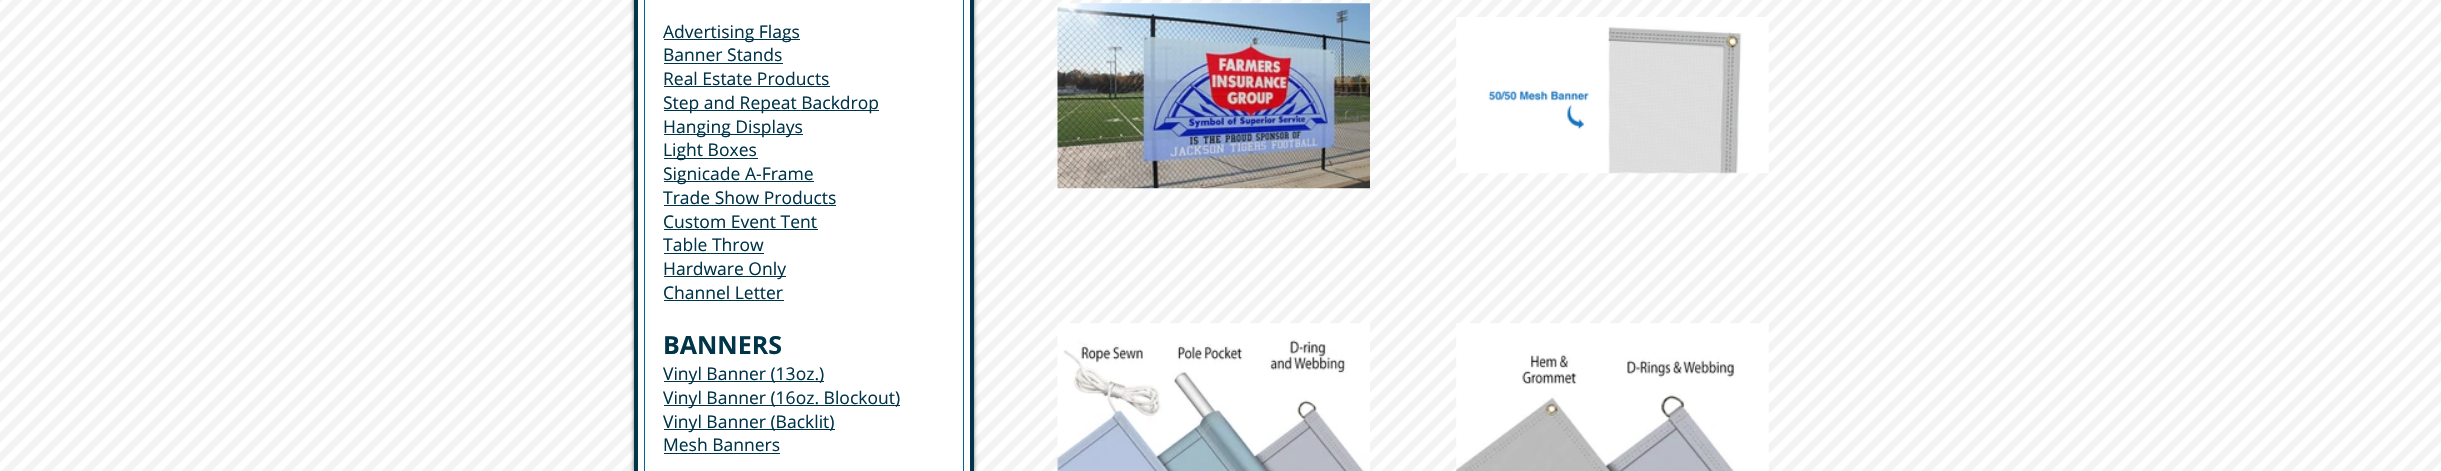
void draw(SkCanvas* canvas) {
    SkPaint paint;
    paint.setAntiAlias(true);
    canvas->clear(0xFFFFFFFF);
    canvas->drawImageRect(SkImages::DeferredFromEncodedData(SkData::MakeFromFileName("img1.png")), SkRect::MakeXYWH(0, 0, 2441, 471), SkSamplingOptions());
    paint.setColor(0x80000000);
    paint.setMaskFilter(SkMaskFilter::MakeBlur(kNormal_SkBlurStyle, 2));
    canvas->drawRect(SkRect::MakeXYWH(634, -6, 340, 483), paint);
    paint.setMaskFilter(nullptr);
    paint.setColor(0xFFFFFFFF);
    canvas->drawRect(SkRect::MakeXYWH(636, -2, 336, 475), paint);
    paint.setStyle(SkPaint::kStroke_Style);
    paint.setStrokeWidth(4);
    paint.setColor(0xFF003448);
    canvas->drawRect(SkRect::MakeXYWH(636, -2, 336, 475), paint);
    paint.setStrokeWidth(1);
    paint.setColor(0xFF006990);
    canvas->drawRect(SkRect::MakeXYWH(644.5f, -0.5f, 319, 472), paint);
    paint.setStyle(SkPaint::kFill_Style);
    paint.setColor(0xFF003448);
    canvas->drawRect(SkRect::MakeXYWH(664, 39, 136, 1), paint);
    SkFont font1(fontMgr->matchFamilyStyle("Open Sans", SkFontStyle::Normal()), 17.5f);
    font1.setSubpixel(true);
    canvas->drawString("Advertising Flags", 663, 38, font1, paint);
    canvas->drawString("Banner Stands", 663, 61, font1, paint);
    canvas->drawRect(SkRect::MakeXYWH(664, 63, 119, 1), paint);
    canvas->drawString("Real Estate Products", 663, 85, font1, paint);
    canvas->drawRect(SkRect::MakeXYWH(664, 86, 166, 1), paint);
    canvas->drawRect(SkRect::MakeXYWH(664, 110, 215, 1), paint);
    canvas->drawString("Step and Repeat Backdrop", 663, 109, font1, paint);
    canvas->drawRect(SkRect::MakeXYWH(664, 134, 139, 1), paint);
    canvas->drawString("Hanging Displays", 663, 133, font1, paint);
    canvas->drawRect(SkRect::MakeXYWH(664, 158, 94, 1), paint);
    canvas->drawString("Light Boxes", 663, 156, font1, paint);
    canvas->drawRect(SkRect::MakeXYWH(664, 181, 150, 1), paint);
    canvas->drawString("Signicade A-Frame", 663, 180, font1, paint);
    canvas->drawString("Trade Show Products", 663, 204, font1, paint);
    canvas->drawRect(SkRect::MakeXYWH(664, 205, 172, 1), paint);
    canvas->drawString("Custom Event Tent", 663, 228, font1, paint);
    canvas->drawRect(SkRect::MakeXYWH(664, 229, 154, 1), paint);
    canvas->drawString("Table Throw", 663, 251, font1, paint);
    canvas->drawRect(SkRect::MakeXYWH(664, 253, 100, 1), paint);
    canvas->drawRect(SkRect::MakeXYWH(664, 276, 122, 1), paint);
    canvas->drawString("Hardware Only", 663, 275, font1, paint);
    canvas->drawString("Channel Letter", 663, 299, font1, paint);
    canvas->drawRect(SkRect::MakeXYWH(664, 300, 120, 1), paint);
    SkFont font2(fontMgr->matchFamilyStyle("Open Sans", SkFontStyle::Bold()), 25);
    font2.setSubpixel(true);
    canvas->drawString("BANNERS", 663, 354, font2, paint);
    canvas->drawRect(SkRect::MakeXYWH(664, 381, 160, 1), paint);
    canvas->drawString("Vinyl Banner (13oz.)", 663, 380, font1, paint);
    canvas->drawRect(SkRect::MakeXYWH(664, 405, 236, 1), paint);
    canvas->drawString("Vinyl Banner (16oz. Blockout)", 663, 404, font1, paint);
    canvas->drawRect(SkRect::MakeXYWH(664, 429, 171, 1), paint);
    canvas->drawString("Vinyl Banner (Backlit)", 663, 428, font1, paint);
    canvas->drawString("Mesh Banners", 663, 451, font1, paint);
    canvas->drawRect(SkRect::MakeXYWH(664, 453, 116, 1), paint);
    canvas->drawImageRect(SkImages::DeferredFromEncodedData(SkData::MakeFromFileName("img2.png")), SkRect::MakeXYWH(1057, 3, 313, 186), SkSamplingOptions());
    canvas->drawImageRect(SkImages::DeferredFromEncodedData(SkData::MakeFromFileName("img3.png")), SkRect::MakeXYWH(1456, 17, 313, 157), SkSamplingOptions());
    canvas->drawImageRect(SkImages::DeferredFromEncodedData(SkData::MakeFromFileName("img4.png")), SkRect::MakeXYWH(1057, 323, 313, 148), SkSamplingOptions());
    canvas->drawImageRect(SkImages::DeferredFromEncodedData(SkData::MakeFromFileName("img5.png")), SkRect::MakeXYWH(1456, 323, 313, 148), SkSamplingOptions());
}
